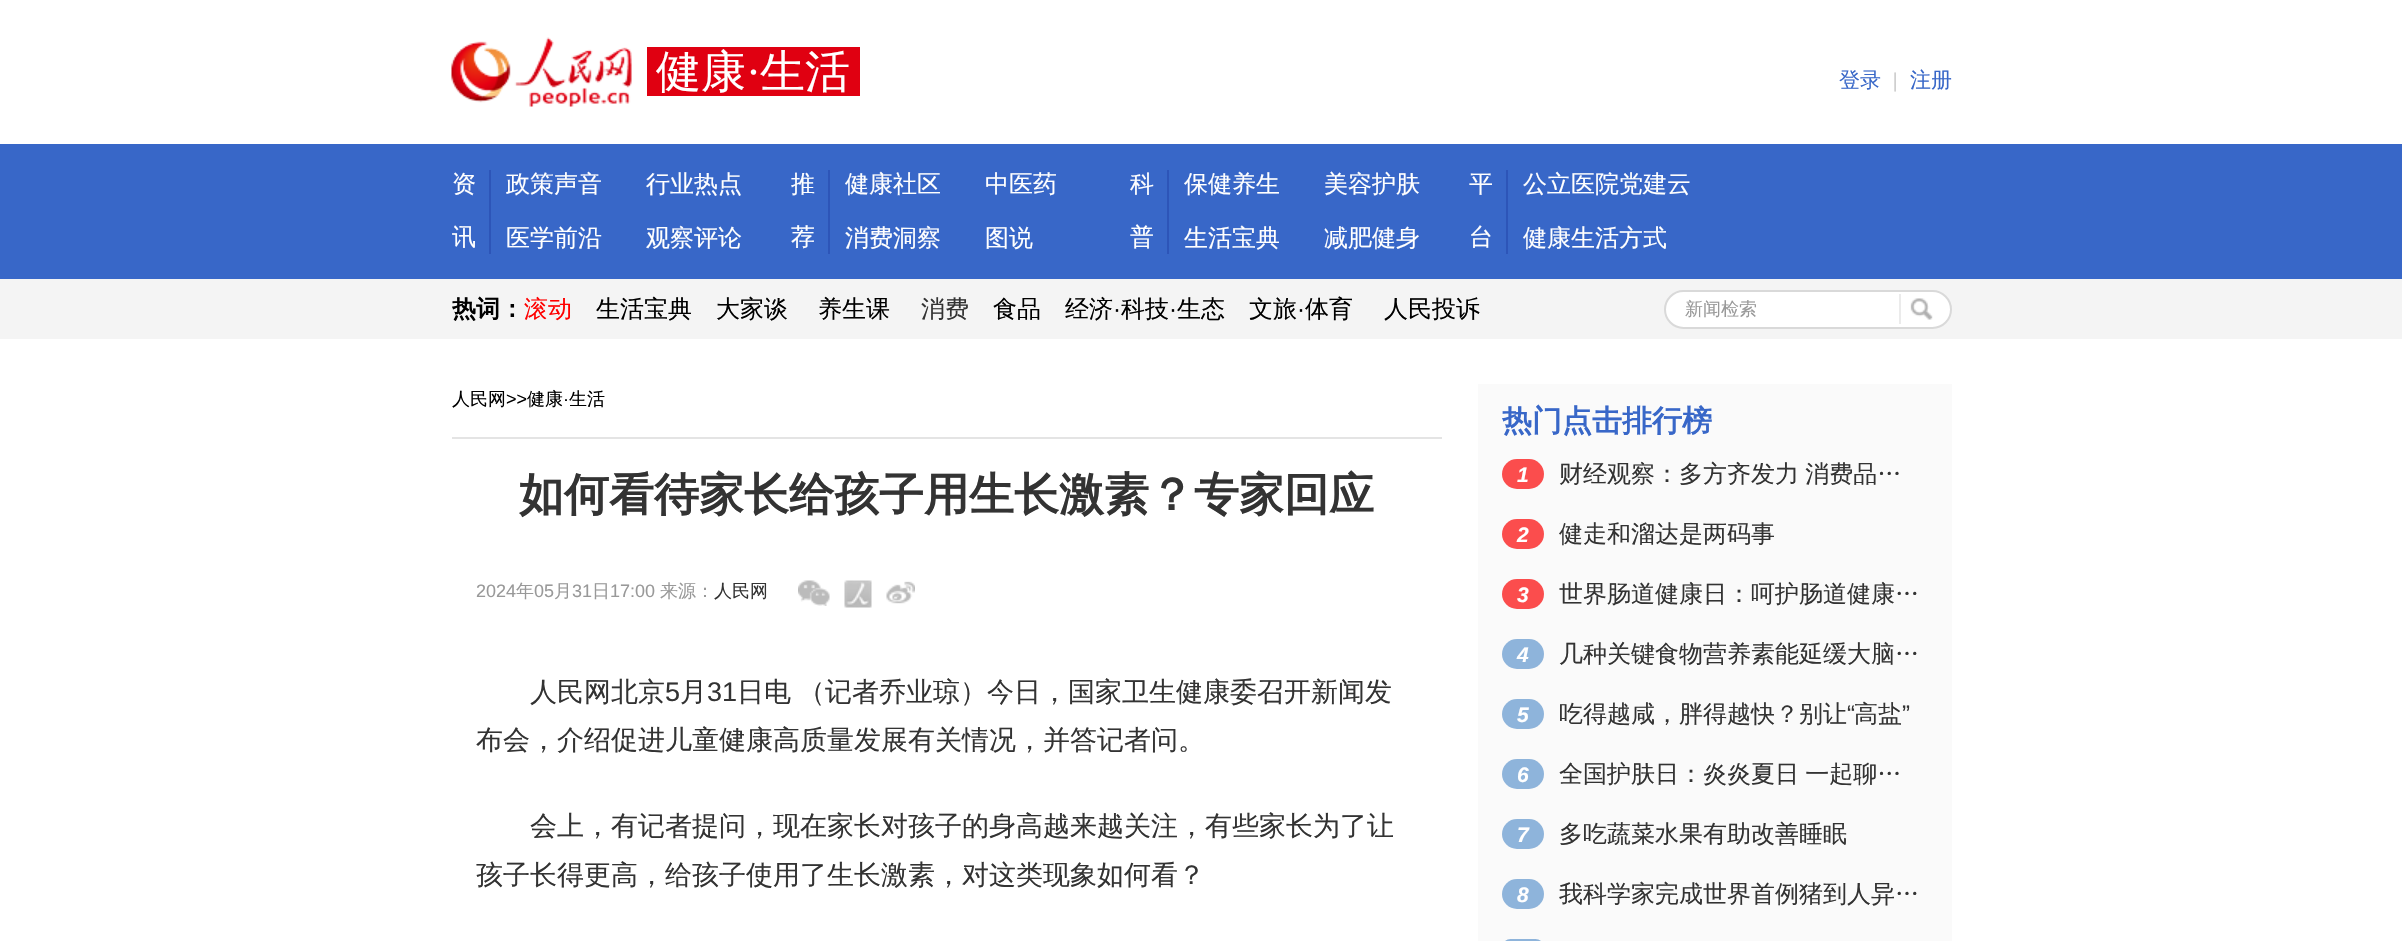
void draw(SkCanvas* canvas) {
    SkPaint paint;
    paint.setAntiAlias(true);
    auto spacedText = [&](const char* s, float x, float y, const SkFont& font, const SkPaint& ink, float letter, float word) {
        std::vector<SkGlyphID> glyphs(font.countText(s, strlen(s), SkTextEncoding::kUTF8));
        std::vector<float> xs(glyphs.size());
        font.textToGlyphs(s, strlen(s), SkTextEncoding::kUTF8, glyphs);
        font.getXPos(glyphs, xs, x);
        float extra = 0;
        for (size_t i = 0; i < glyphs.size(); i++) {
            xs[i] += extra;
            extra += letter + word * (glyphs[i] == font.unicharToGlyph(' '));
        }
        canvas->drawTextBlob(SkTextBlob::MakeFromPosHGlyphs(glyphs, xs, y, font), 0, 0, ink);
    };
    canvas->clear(0xFFFFFFFF);
    canvas->drawImageRect(SkImages::DeferredFromEncodedData(SkData::MakeFromFileName("img1.png")), SkRect::MakeXYWH(451, 37, 181, 70), SkSamplingOptions());
    paint.setColor(0xFFE00011);
    canvas->drawRect(SkRect::MakeXYWH(647, 47, 213, 49), paint);
    SkFont font1(fontMgr->matchFamilyStyle("WenQuanYi Zen Hei", SkFontStyle(500, SkFontStyle::kNormal_Width, SkFontStyle::kUpright_Slant)), 45);
    font1.setSubpixel(true);
    paint.setColor(0xFFFFFFFF);
    canvas->drawString("健康", 656, 87, font1, paint);
    SkFont font2(fontMgr->matchFamilyStyle("Liberation Serif", SkFontStyle::Normal()), 45);
    font2.setSubpixel(true);
    canvas->drawString("·", 746, 87, font2, paint);
    canvas->drawString("生活", 760, 87, font1, paint);
    SkFont font3(fontMgr->matchFamilyStyle("WenQuanYi Zen Hei", SkFontStyle(500, SkFontStyle::kNormal_Width, SkFontStyle::kUpright_Slant)), 21);
    font3.setSubpixel(true);
    paint.setColor(0xFF3867C8);
    canvas->drawString("登录", 1839, 87, font3, paint);
    SkFont font4(fontMgr->matchFamilyStyle("Liberation Serif", SkFontStyle::Normal()), 21);
    font4.setSubpixel(true);
    paint.setColor(0xFFBBBBBB);
    canvas->drawString("|", 1893, 87, font4, paint);
    paint.setColor(0xFF3867C8);
    canvas->drawString("注册", 1910, 87, font3, paint);
    canvas->drawRect(SkRect::MakeXYWH(0, 144, 2402, 135), paint);
    SkFont font5(fontMgr->matchFamilyStyle("WenQuanYi Zen Hei", SkFontStyle(500, SkFontStyle::kNormal_Width, SkFontStyle::kUpright_Slant)), 24);
    font5.setSubpixel(true);
    paint.setColor(0xFFFFFFFF);
    canvas->drawString("资", 452, 192, font5, paint);
    canvas->drawString("讯", 452, 245, font5, paint);
    paint.setColor(0xFF2D55B8);
    canvas->drawRect(SkRect::MakeXYWH(489, 170, 2, 84), paint);
    paint.setColor(0xFFFFFFFF);
    canvas->drawString("政策声音", 506, 192, font5, paint);
    canvas->drawString("行业热点", 646, 192, font5, paint);
    canvas->drawString("医学前沿", 506, 246, font5, paint);
    canvas->drawString("观察评论", 646, 246, font5, paint);
    canvas->drawString("推", 791, 192, font5, paint);
    canvas->drawString("荐", 791, 245, font5, paint);
    paint.setColor(0xFF2D55B8);
    canvas->drawRect(SkRect::MakeXYWH(828, 170, 2, 84), paint);
    paint.setColor(0xFFFFFFFF);
    canvas->drawString("健康社区", 845, 192, font5, paint);
    canvas->drawString("中医药", 985, 192, font5, paint);
    canvas->drawString("消费洞察", 845, 246, font5, paint);
    canvas->drawString("图说", 985, 246, font5, paint);
    canvas->drawString("科", 1130, 192, font5, paint);
    canvas->drawString("普", 1130, 245, font5, paint);
    paint.setColor(0xFF2D55B8);
    canvas->drawRect(SkRect::MakeXYWH(1167, 170, 2, 84), paint);
    paint.setColor(0xFFFFFFFF);
    canvas->drawString("保健养生", 1184, 192, font5, paint);
    canvas->drawString("美容护肤", 1324, 192, font5, paint);
    canvas->drawString("生活宝典", 1184, 246, font5, paint);
    canvas->drawString("减肥健身", 1324, 246, font5, paint);
    canvas->drawString("平", 1469, 192, font5, paint);
    canvas->drawString("台", 1469, 245, font5, paint);
    paint.setColor(0xFF2D55B8);
    canvas->drawRect(SkRect::MakeXYWH(1506, 170, 2, 84), paint);
    paint.setColor(0xFFFFFFFF);
    canvas->drawString("公立医院党建云", 1523, 192, font5, paint);
    canvas->drawString("健康生活方式", 1523, 246, font5, paint);
    paint.setColor(0xFFF4F4F4);
    canvas->drawRect(SkRect::MakeXYWH(0, 279, 2402, 60), paint);
    SkFont font6(fontMgr->matchFamilyStyle("WenQuanYi Zen Hei", SkFontStyle::Bold()), 24);
    font6.setSubpixel(true);
    paint.setColor(0xFF000000);
    canvas->drawString("热词：", 452, 317, font6, paint);
    paint.setColor(0xFFFF0000);
    canvas->drawString("滚动", 524, 317, font5, paint);
    paint.setColor(0xFF000000);
    canvas->drawString("生活宝典", 596, 317, font5, paint);
    canvas->drawString("大家谈", 716, 317, font5, paint);
    canvas->drawString("养生课", 818, 317, font5, paint);
    paint.setColor(0xFF333333);
    canvas->drawString("消费", 921, 317, font5, paint);
    paint.setColor(0xFF000000);
    canvas->drawString("食品", 993, 317, font5, paint);
    canvas->drawString("经济", 1065, 317, font5, paint);
    SkFont font7(fontMgr->matchFamilyStyle("Liberation Sans", SkFontStyle::Normal()), 24);
    font7.setSubpixel(true);
    canvas->drawString("·", 1113, 317, font7, paint);
    canvas->drawString("科技", 1121, 317, font5, paint);
    canvas->drawString("·", 1169, 317, font7, paint);
    canvas->drawString("生态", 1177, 317, font5, paint);
    canvas->drawString("文旅", 1249, 317, font5, paint);
    canvas->drawString("·", 1297, 317, font7, paint);
    canvas->drawString("体育", 1305, 317, font5, paint);
    canvas->drawString("人民投诉", 1384, 317, font5, paint);
    paint.setColor(0xFFFFFFFF);
    canvas->drawRoundRect(SkRect::MakeXYWH(1665, 291, 286, 37), 18.5f, 18.5f, paint);
    paint.setStyle(SkPaint::kStroke_Style);
    paint.setStrokeWidth(2);
    paint.setColor(0xFFD9D9D9);
    canvas->drawRoundRect(SkRect::MakeXYWH(1665, 291, 286, 37), 18.5f, 18.5f, paint);
    paint.setStyle(SkPaint::kFill_Style);
    paint.setColor(0xFFEBEBEB);
    canvas->drawRect(SkRect::MakeXYWH(1899, 294, 2, 30), paint);
    SkFont font8(fontMgr->matchFamilyStyle("WenQuanYi Zen Hei", SkFontStyle(500, SkFontStyle::kNormal_Width, SkFontStyle::kUpright_Slant)), 18);
    font8.setSubpixel(true);
    paint.setColor(0xFF999999);
    canvas->drawString("新闻检索", 1685, 315, font8, paint);
    canvas->drawImageRect(SkImages::DeferredFromEncodedData(SkData::MakeFromFileName("img2.png")), SkRect::MakeXYWH(1910, 298, 23, 22), SkSamplingOptions());
    paint.setColor(0xFFE4E4E4);
    canvas->drawRect(SkRect::MakeXYWH(452, 437, 990, 2), paint);
    paint.setColor(0xFF000000);
    canvas->drawString("人民网", 452, 405, font8, paint);
    SkFont font9(fontMgr->matchFamilyStyle("Liberation Sans", SkFontStyle::Normal()), 18);
    font9.setSubpixel(true);
    canvas->drawString(">>", 506, 405, font9, paint);
    canvas->drawString("健康", 527, 405, font8, paint);
    canvas->drawString("·", 563, 405, font9, paint);
    canvas->drawString("生活", 569, 405, font8, paint);
    SkFont font10(fontMgr->matchFamilyStyle("WenQuanYi Zen Hei", SkFontStyle::Bold()), 45);
    font10.setSubpixel(true);
    paint.setColor(0xFF333333);
    canvas->drawString("如何看待家长给孩子用生长激素？专家回应", 519, 510, font10, paint);
    paint.setColor(0xFF999999);
    canvas->drawString("2024", 476, 597, font9, paint);
    canvas->drawString("年", 516, 597, font8, paint);
    canvas->drawString("05", 534, 597, font9, paint);
    canvas->drawString("月", 554, 597, font8, paint);
    canvas->drawString("31", 572, 597, font9, paint);
    canvas->drawString("日", 592, 597, font8, paint);
    canvas->drawString("17:00", 610, 597, font9, paint);
    canvas->drawString("来源：", 660, 597, font8, paint);
    paint.setColor(0xFF333333);
    canvas->drawString("人民网", 714, 597, font8, paint);
    canvas->drawImageRect(SkImages::DeferredFromEncodedData(SkData::MakeFromFileName("img3.png")), SkRect::MakeXYWH(798, 580, 32, 26), SkSamplingOptions());
    canvas->drawImageRect(SkImages::DeferredFromEncodedData(SkData::MakeFromFileName("img4.png")), SkRect::MakeXYWH(844, 580, 28, 28), SkSamplingOptions());
    canvas->drawImageRect(SkImages::DeferredFromEncodedData(SkData::MakeFromFileName("img5.png")), SkRect::MakeXYWH(886, 581, 29, 23), SkSamplingOptions());
    SkFont font11(fontMgr->matchFamilyStyle("WenQuanYi Zen Hei", SkFontStyle(500, SkFontStyle::kNormal_Width, SkFontStyle::kUpright_Slant)), 27);
    font11.setSubpixel(true);
    canvas->drawString("人民网北京", 530, 701, font11, paint);
    SkFont font12(fontMgr->matchFamilyStyle("Liberation Sans", SkFontStyle::Normal()), 27);
    font12.setSubpixel(true);
    canvas->drawString("5", 665, 701, font12, paint);
    canvas->drawString("月", 680, 701, font11, paint);
    canvas->drawString("31", 707, 701, font12, paint);
    spacedText("日电 （记者乔业琼）今日，国家卫生健康委召开新闻发", 737, 701, font11, paint, 0, -1);
    canvas->drawString("布会，介绍促进儿童健康高质量发展有关情况，并答记者问。", 476, 749, font11, paint);
    canvas->drawString("会上，有记者提问，现在家长对孩子的身高越来越关注，有些家长为了让", 530, 835, font11, paint);
    canvas->drawString("孩子长得更高，给孩子使用了生长激素，对这类现象如何看？", 476, 884, font11, paint);
    paint.setColor(0xFFFAFAFA);
    canvas->drawRect(SkRect::MakeXYWH(1478, 384, 474, 557), paint);
    SkFont font13(fontMgr->matchFamilyStyle("WenQuanYi Zen Hei", SkFontStyle::Bold()), 30);
    font13.setSubpixel(true);
    paint.setColor(0xFF3867C8);
    canvas->drawString("热门点击排行榜", 1502, 431, font13, paint);
    paint.setColor(0xFFFB4D4D);
    canvas->drawRoundRect(SkRect::MakeXYWH(1502, 459, 42, 30), 15, 15, paint);
    SkFont font14(fontMgr->matchFamilyStyle("Liberation Sans", SkFontStyle::BoldItalic()), 21);
    font14.setSubpixel(true);
    paint.setColor(0xFFFFFFFF);
    canvas->drawString("1", 1517, 482, font14, paint);
    paint.setColor(0xFF333333);
    spacedText("财经观察：多方齐发力 消费品…", 1559, 482, font5, paint, 0, -1);
    paint.setColor(0xFFFB4D4D);
    canvas->drawRoundRect(SkRect::MakeXYWH(1502, 519, 42, 30), 15, 15, paint);
    paint.setColor(0xFFFFFFFF);
    canvas->drawString("2", 1517, 542, font14, paint);
    paint.setColor(0xFF333333);
    canvas->drawString("健走和溜达是两码事", 1559, 542, font5, paint);
    paint.setColor(0xFFFB4D4D);
    canvas->drawRoundRect(SkRect::MakeXYWH(1502, 579, 42, 30), 15, 15, paint);
    paint.setColor(0xFFFFFFFF);
    canvas->drawString("3", 1517, 602, font14, paint);
    paint.setColor(0xFF333333);
    spacedText("世界肠道健康日：呵护肠道健康…", 1559, 602, font5, paint, 0, -1);
    paint.setColor(0xFF8EB4DB);
    canvas->drawRoundRect(SkRect::MakeXYWH(1502, 639, 42, 30), 15, 15, paint);
    paint.setColor(0xFFFFFFFF);
    canvas->drawString("4", 1517, 662, font14, paint);
    paint.setColor(0xFF333333);
    canvas->drawString("几种关键食物营养素能延缓大脑…", 1559, 662, font5, paint);
    paint.setColor(0xFF8EB4DB);
    canvas->drawRoundRect(SkRect::MakeXYWH(1502, 699, 42, 30), 15, 15, paint);
    paint.setColor(0xFFFFFFFF);
    canvas->drawString("5", 1517, 722, font14, paint);
    paint.setColor(0xFF333333);
    canvas->drawString("吃得越咸，胖得越快？别让", 1559, 722, font5, paint);
    canvas->drawString("“", 1847, 722, font7, paint);
    canvas->drawString("高盐", 1854, 722, font5, paint);
    canvas->drawString("”", 1902, 722, font7, paint);
    paint.setColor(0xFF8EB4DB);
    canvas->drawRoundRect(SkRect::MakeXYWH(1502, 759, 42, 30), 15, 15, paint);
    paint.setColor(0xFFFFFFFF);
    canvas->drawString("6", 1517, 782, font14, paint);
    paint.setColor(0xFF333333);
    spacedText("全国护肤日：炎炎夏日 一起聊…", 1559, 782, font5, paint, 0, -1);
    paint.setColor(0xFF8EB4DB);
    canvas->drawRoundRect(SkRect::MakeXYWH(1502, 819, 42, 30), 15, 15, paint);
    paint.setColor(0xFFFFFFFF);
    canvas->drawString("7", 1517, 842, font14, paint);
    paint.setColor(0xFF333333);
    canvas->drawString("多吃蔬菜水果有助改善睡眠", 1559, 842, font5, paint);
    paint.setColor(0xFF8EB4DB);
    canvas->drawRoundRect(SkRect::MakeXYWH(1502, 879, 42, 30), 15, 15, paint);
    paint.setColor(0xFFFFFFFF);
    canvas->drawString("8", 1517, 902, font14, paint);
    paint.setColor(0xFF333333);
    canvas->drawString("我科学家完成世界首例猪到人异…", 1559, 902, font5, paint);
    paint.setColor(0xFF8EB4DB);
    canvas->drawRoundRect(SkRect::MakeXYWH(1502, 939, 42, 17), 15, 15, paint);
}
